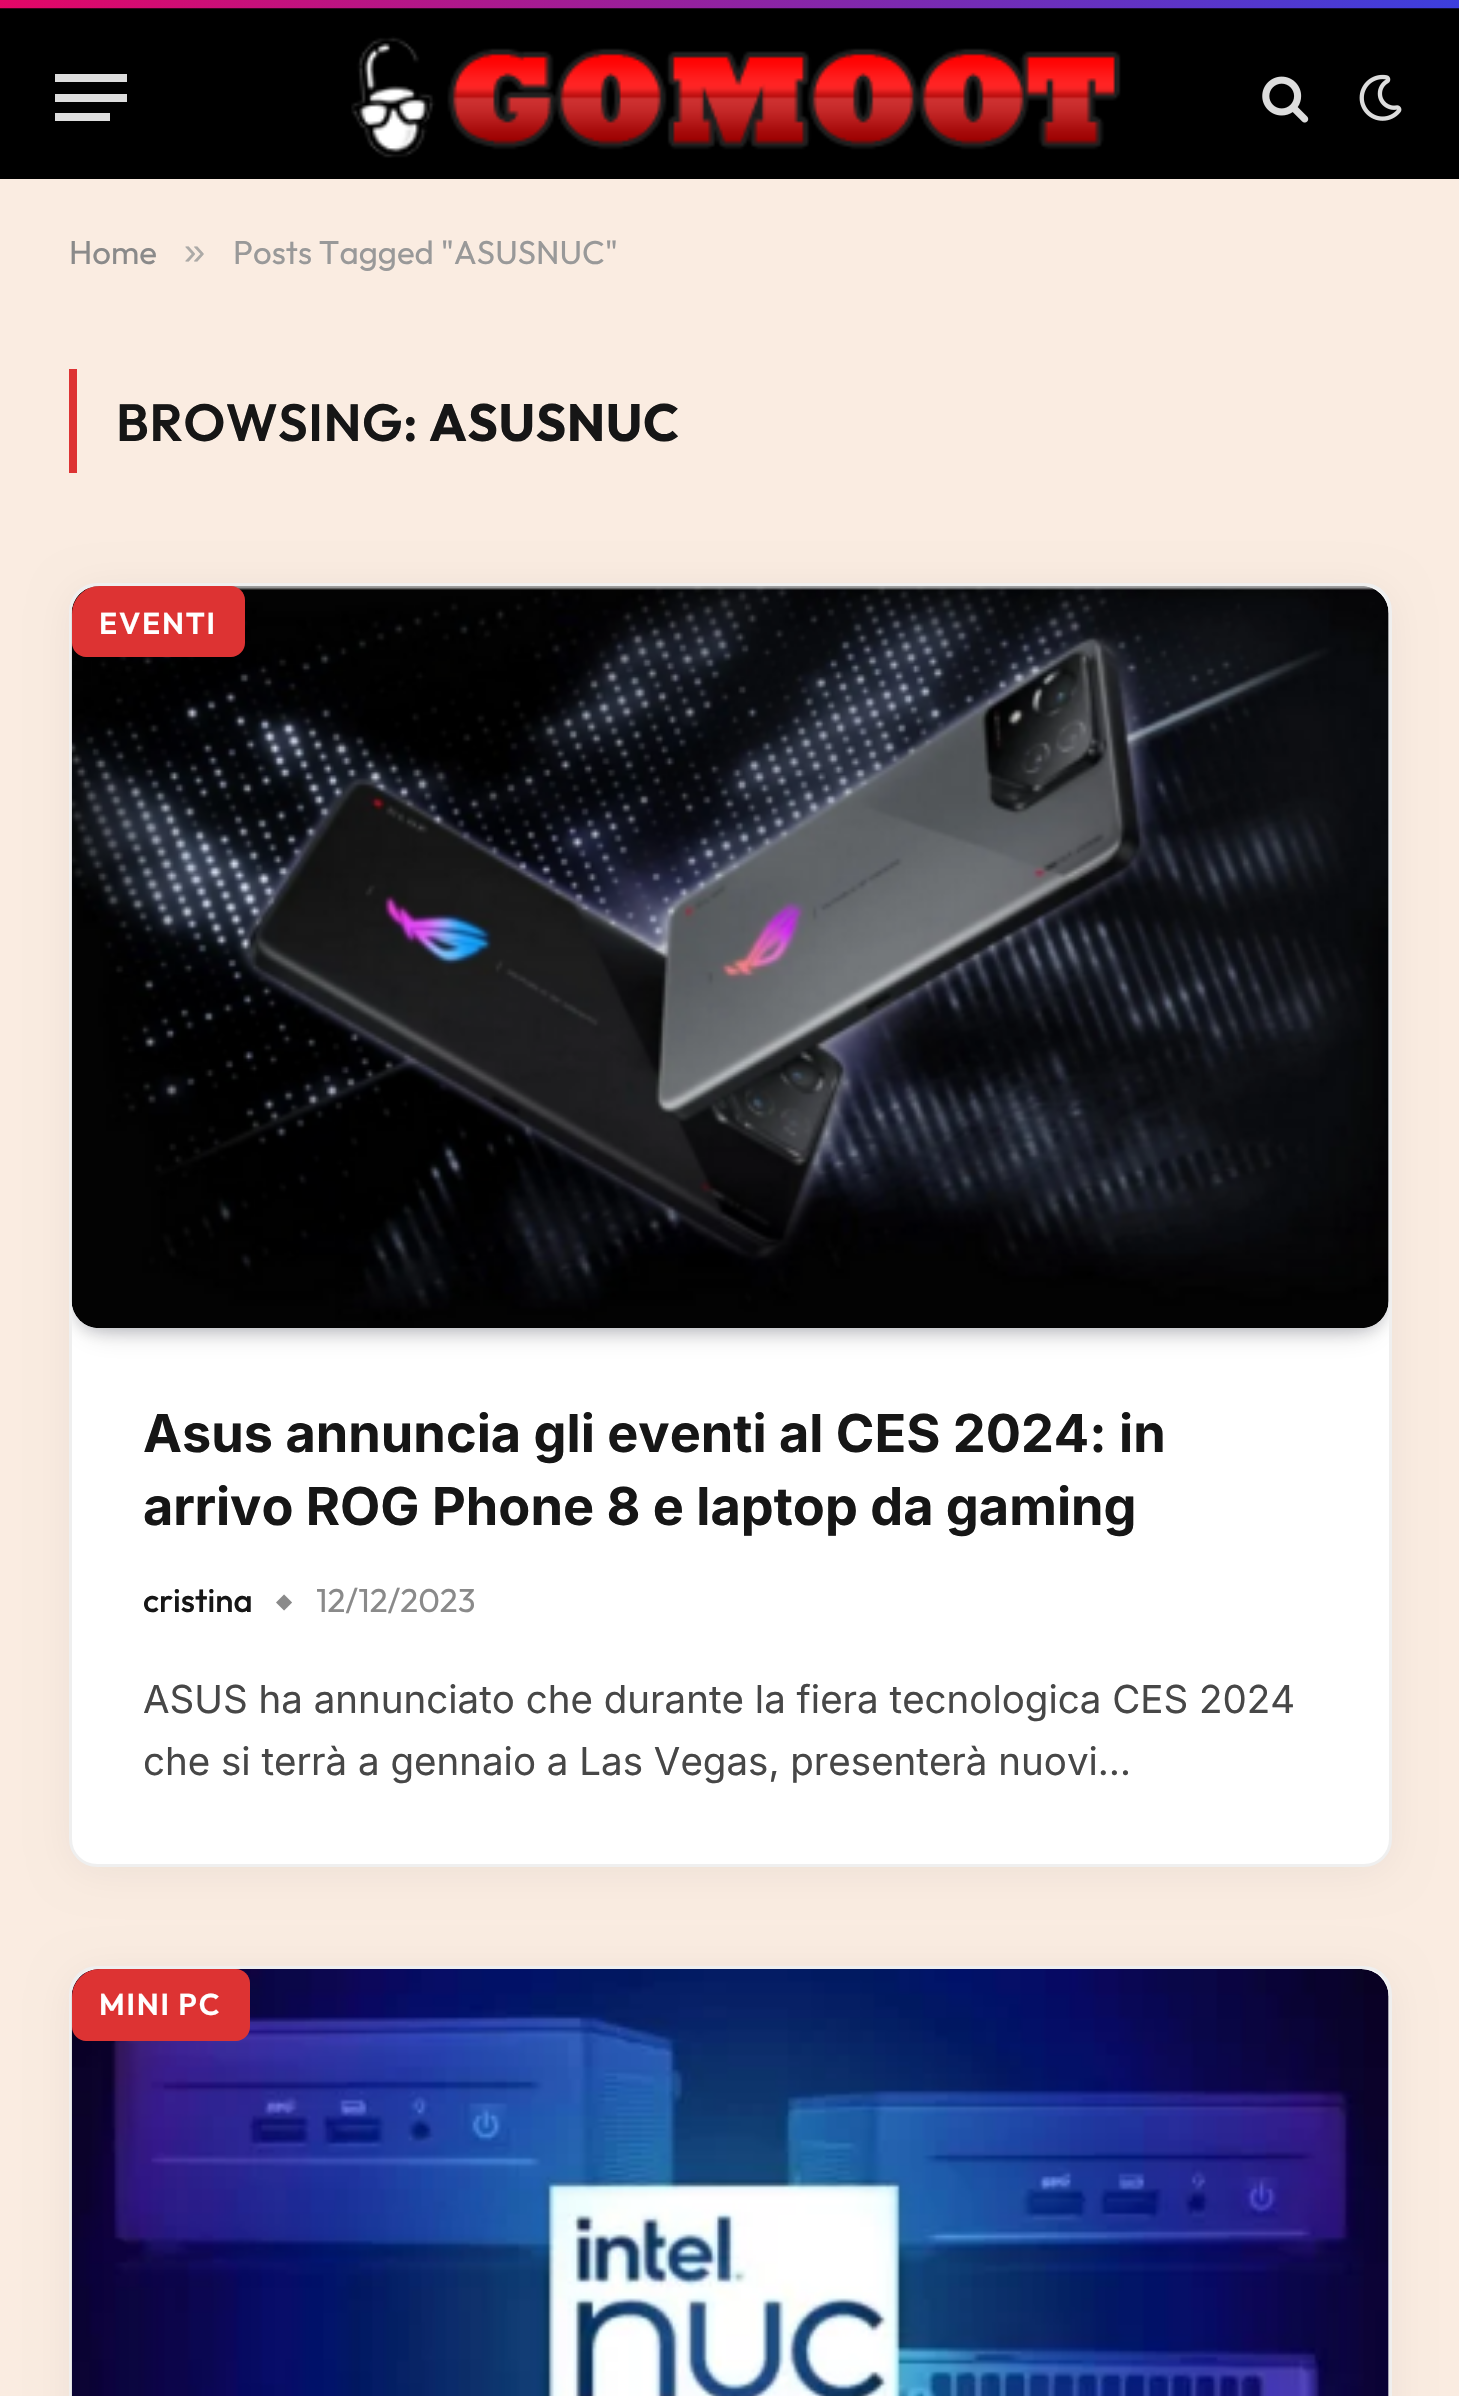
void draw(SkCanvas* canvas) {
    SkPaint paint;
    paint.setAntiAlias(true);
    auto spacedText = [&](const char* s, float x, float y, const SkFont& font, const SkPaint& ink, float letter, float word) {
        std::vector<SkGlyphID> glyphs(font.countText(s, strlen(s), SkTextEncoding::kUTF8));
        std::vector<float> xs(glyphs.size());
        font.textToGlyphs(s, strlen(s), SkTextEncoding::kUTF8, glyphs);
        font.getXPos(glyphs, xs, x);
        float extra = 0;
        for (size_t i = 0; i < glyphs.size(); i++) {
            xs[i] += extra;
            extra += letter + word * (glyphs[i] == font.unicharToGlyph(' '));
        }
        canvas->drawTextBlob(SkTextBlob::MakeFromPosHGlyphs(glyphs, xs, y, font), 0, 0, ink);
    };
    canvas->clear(0xFFFAECE1);
    paint.setColor(0xFF000000);
    canvas->drawRect(SkRect::MakeXYWH(0, 8, 1459, 171), paint);
    canvas->drawImageRect(SkImages::DeferredFromEncodedData(SkData::MakeFromFileName("img1.png")), SkRect::MakeXYWH(0, 0, 1459, 9), SkSamplingOptions());
    paint.setColor(0xFFDDDDDD);
    canvas->drawRect(SkRect::MakeXYWH(55, 113, 55, 8), paint);
    canvas->drawRect(SkRect::MakeXYWH(55, 74, 72, 8), paint);
    canvas->drawRect(SkRect::MakeXYWH(55, 94, 72, 8), paint);
    canvas->drawImageRect(SkImages::DeferredFromEncodedData(SkData::MakeFromFileName("img2.png")), SkRect::MakeXYWH(351, 36, 770, 122), SkSamplingOptions());
    canvas->drawImageRect(SkImages::DeferredFromEncodedData(SkData::MakeFromFileName("img3.png")), SkRect::MakeXYWH(1262, 76, 47, 47), SkSamplingOptions());
    canvas->drawImageRect(SkImages::DeferredFromEncodedData(SkData::MakeFromFileName("img4.png")), SkRect::MakeXYWH(1359, 74, 43, 47), SkSamplingOptions());
    SkFont font1(fontMgr->matchFamilyStyle("Outfit", SkFontStyle::Normal()), 33);
    font1.setSubpixel(true);
    paint.setColor(0xFF8A8A8A);
    canvas->drawString("Home", 69, 264, font1, paint);
    SkFont font2(fontMgr->matchFamilyStyle("Liberation Sans", SkFontStyle::Normal()), 38);
    font2.setSubpixel(true);
    paint.setColor(0xFFACAAA7);
    canvas->drawString("»", 184, 264, font2, paint);
    paint.setColor(0xFF999999);
    canvas->drawString("Posts Tagged \"ASUSNUC\"", 233, 264, font1, paint);
    paint.setColor(0xFFDD3333);
    canvas->drawRect(SkRect::MakeXYWH(69, 369, 8, 104), paint);
    SkFont font3(fontMgr->matchFamilyStyle("Outfit", SkFontStyle(600, SkFontStyle::kNormal_Width, SkFontStyle::kUpright_Slant)), 52.25f);
    font3.setSubpixel(true);
    paint.setColor(0xFF161616);
    spacedText("BROWSING:", 116, 441, font3, paint, 0.5f, 0);
    SkFont font4(fontMgr->matchFamilyStyle("Outfit", SkFontStyle::Bold()), 52.25f);
    font4.setSubpixel(true);
    spacedText("ASUSNUC", 429, 441, font4, paint, 0.5f, 0);
    paint.setColor(0x0F000000);
    paint.setMaskFilter(SkMaskFilter::MakeBlur(kNormal_SkBlurStyle, 20.5f));
    canvas->drawRoundRect(SkRect::MakeXYWH(72, 591, 1317, 1279), 25, 25, paint);
    paint.setMaskFilter(nullptr);
    paint.setColor(0xFFFFFFFF);
    canvas->drawRoundRect(SkRect::MakeXYWH(70.5f, 584.5f, 1320, 1281), 26.5f, 26.5f, paint);
    paint.setStyle(SkPaint::kStroke_Style);
    paint.setStrokeWidth(3);
    paint.setColor(0xFFEFEFEF);
    canvas->drawRoundRect(SkRect::MakeXYWH(70.5f, 584.5f, 1320, 1281), 26.5f, 26.5f, paint);
    canvas->save();
    canvas->clipPath(SkPathBuilder().moveTo(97, 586).lineTo(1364, 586).cubicTo(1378, 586, 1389, 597, 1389, 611).lineTo(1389, 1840).cubicTo(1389, 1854, 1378, 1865, 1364, 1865).lineTo(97, 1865).cubicTo(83, 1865, 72, 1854, 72, 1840).lineTo(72, 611).cubicTo(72, 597, 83, 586, 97, 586).close().detach(), true);
    paint.setStyle(SkPaint::kFill_Style);
    paint.setColor(0x33070A19);
    paint.setMaskFilter(SkMaskFilter::MakeBlur(kNormal_SkBlurStyle, 16.5f));
    canvas->drawRoundRect(SkRect::MakeXYWH(88, 619, 1284, 709), 11, 11, paint);
    paint.setMaskFilter(nullptr);
    paint.setMaskFilter(SkMaskFilter::MakeBlur(kNormal_SkBlurStyle, 8));
    canvas->drawRoundRect(SkRect::MakeXYWH(74, 594, 1312, 737), 25, 25, paint);
    paint.setMaskFilter(nullptr);
    canvas->restore();
    canvas->drawImageRect(SkImages::DeferredFromEncodedData(SkData::MakeFromFileName("img5.png")), SkRect::MakeXYWH(71, 586, 1318, 742), SkSamplingOptions());
    paint.setColor(0xFFDD3333);
    canvas->drawPath(SkPathBuilder().moveTo(100, 586).lineTo(231, 586).cubicTo(238.5f, 586, 245, 592.5f, 245, 600).lineTo(245, 643).cubicTo(245, 650.5f, 238.5f, 657, 231, 657).lineTo(86, 657).cubicTo(78.5f, 657, 72, 650.5f, 72, 643).lineTo(72, 614).cubicTo(72, 598.5f, 84.5f, 586, 100, 586).close().detach(), paint);
    SkFont font5(fontMgr->matchFamilyStyle("Outfit", SkFontStyle(600, SkFontStyle::kNormal_Width, SkFontStyle::kUpright_Slant)), 30.25f);
    font5.setSubpixel(true);
    paint.setColor(0xFFFFFFFF);
    spacedText("EVENTI", 99, 634, font5, paint, 1.75f, 0);
    SkFont font6(fontMgr->matchFamilyStyle("Inter", SkFontStyle::Bold()), 52.25f);
    font6.setSubpixel(true);
    paint.setColor(0xFF161616);
    canvas->drawString("Asus annuncia gli eventi al CES 2024: in", 143, 1452, font6, paint);
    canvas->drawString("arrivo ROG Phone 8 e laptop da gaming", 143, 1525, font6, paint);
    SkFont font7(fontMgr->matchFamilyStyle("Outfit", SkFontStyle(500, SkFontStyle::kNormal_Width, SkFontStyle::kUpright_Slant)), 33);
    font7.setSubpixel(true);
    canvas->drawString("cristina", 143, 1612, font7, paint);
    SkFont font8(fontMgr->matchFamilyStyle("DejaVu Sans", SkFontStyle::Normal()), 21);
    font8.setSubpixel(true);
    paint.setColor(0xFF8A8A8A);
    canvas->drawString("◆", 276, 1608, font8, paint);
    canvas->drawString("12/12/2023", 316, 1612, font1, paint);
    SkFont font9(fontMgr->matchFamilyStyle("Inter", SkFontStyle::Normal()), 38.5f);
    font9.setSubpixel(true);
    paint.setColor(0xFF474747);
    canvas->drawString("ASUS ha annunciato che durante la fiera tecnologica CES 2024", 143, 1713, font9, paint);
    canvas->drawString("che si terrà a gennaio a Las Vegas, presenterà nuovi…", 143, 1775, font9, paint);
    paint.setColor(0x0F000000);
    paint.setMaskFilter(SkMaskFilter::MakeBlur(kNormal_SkBlurStyle, 20.5f));
    canvas->drawRoundRect(SkRect::MakeXYWH(72, 1975, 1317, 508), 25, 25, paint);
    paint.setMaskFilter(nullptr);
    paint.setColor(0xFFFFFFFF);
    canvas->drawRoundRect(SkRect::MakeXYWH(70.5f, 1967.5f, 1320, 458), 26.5f, 26.5f, paint);
    paint.setStyle(SkPaint::kStroke_Style);
    paint.setColor(0xFFEFEFEF);
    canvas->drawRoundRect(SkRect::MakeXYWH(70.5f, 1967.5f, 1320, 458), 26.5f, 26.5f, paint);
    canvas->save();
    canvas->clipPath(SkPathBuilder().moveTo(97, 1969).lineTo(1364, 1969).cubicTo(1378, 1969, 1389, 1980, 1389, 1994).lineTo(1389, 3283).cubicTo(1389, 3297, 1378, 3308, 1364, 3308).lineTo(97, 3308).cubicTo(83, 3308, 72, 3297, 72, 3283).lineTo(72, 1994).cubicTo(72, 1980, 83, 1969, 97, 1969).close().detach(), true);
    paint.setStyle(SkPaint::kFill_Style);
    paint.setColor(0x33070A19);
    paint.setMaskFilter(SkMaskFilter::MakeBlur(kNormal_SkBlurStyle, 8));
    canvas->drawRoundRect(SkRect::MakeXYWH(74, 1977, 1312, 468), 25, 25, paint);
    paint.setMaskFilter(nullptr);
    canvas->restore();
    canvas->drawImageRect(SkImages::DeferredFromEncodedData(SkData::MakeFromFileName("img6.png")), SkRect::MakeXYWH(71, 1969, 1318, 427), SkSamplingOptions());
    paint.setColor(0xFFDD3333);
    canvas->drawPath(SkPathBuilder().moveTo(100, 1969).lineTo(236, 1969).cubicTo(243.5f, 1969, 250, 1975.5f, 250, 1983).lineTo(250, 2027).cubicTo(250, 2034.5f, 243.5f, 2041, 236, 2041).lineTo(86, 2041).cubicTo(78.5f, 2041, 72, 2034.5f, 72, 2027).lineTo(72, 1997).cubicTo(72, 1981.5f, 84.5f, 1969, 100, 1969).close().detach(), paint);
    paint.setColor(0xFFFFFFFF);
    spacedText("MINI PC", 99, 2015, font5, paint, 1.75f, 0);
}
